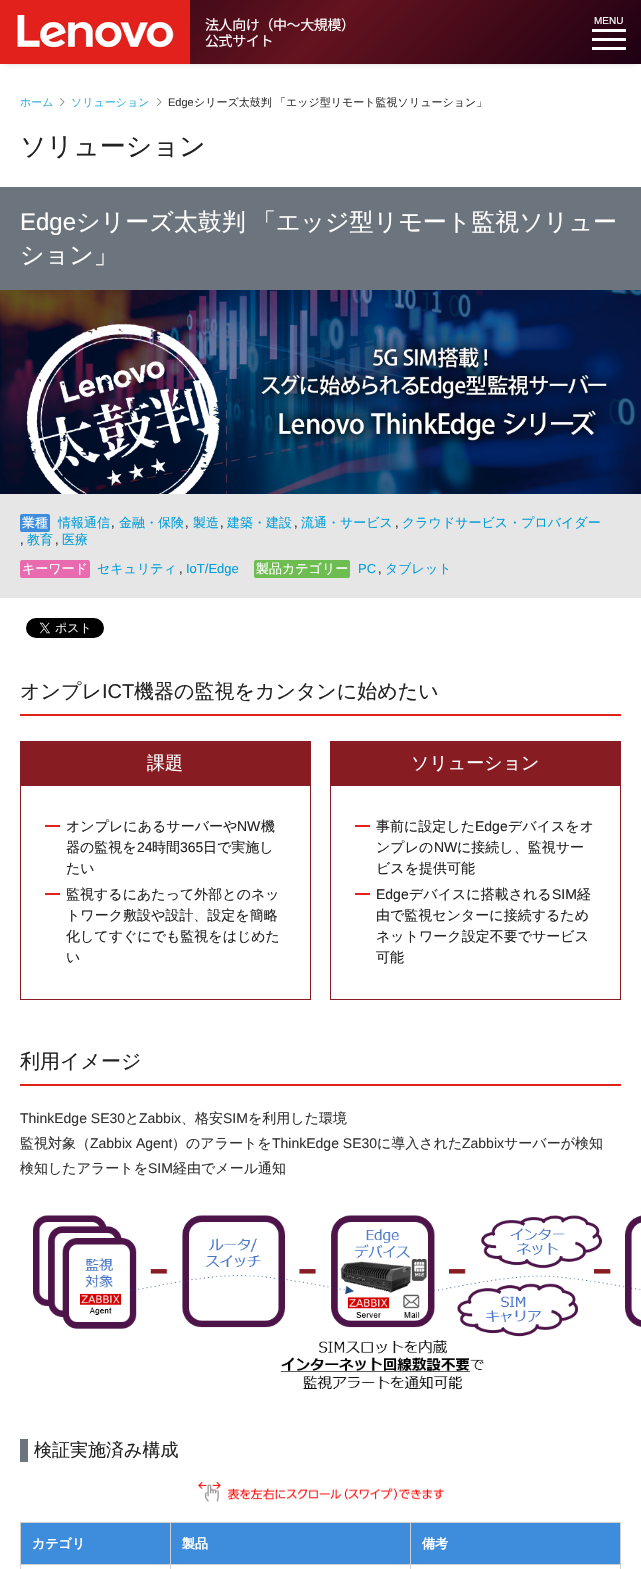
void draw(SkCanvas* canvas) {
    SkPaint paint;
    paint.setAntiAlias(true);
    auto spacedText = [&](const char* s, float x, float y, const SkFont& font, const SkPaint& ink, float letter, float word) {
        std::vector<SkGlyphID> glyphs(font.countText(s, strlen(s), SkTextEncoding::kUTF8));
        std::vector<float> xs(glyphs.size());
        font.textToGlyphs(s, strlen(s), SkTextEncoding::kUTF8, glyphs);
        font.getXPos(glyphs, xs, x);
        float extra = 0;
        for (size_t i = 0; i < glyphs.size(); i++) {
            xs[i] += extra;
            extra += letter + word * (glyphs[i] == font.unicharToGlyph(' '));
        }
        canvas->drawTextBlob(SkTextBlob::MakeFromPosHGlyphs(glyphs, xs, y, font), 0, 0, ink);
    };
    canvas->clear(0xFFFFFFFF);
    paint.setColor(0x33000000);
    paint.setMaskFilter(SkMaskFilter::MakeBlur(kNormal_SkBlurStyle, 3));
    canvas->drawRect(SkRect::MakeXYWH(4, 7, 633, 56), paint);
    paint.setMaskFilter(nullptr);
    {
        const SkColor colors[] = {0xFF1E0013, 0xFF64131E, 0xFF1E0013};
        const float stops[] = {0, 0.5f, 1};
        const SkPoint ends[] = {{144, -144}, {497, 208}};
        paint.setShader(SkGradientShader::MakeLinear(ends, colors, stops, 3, SkTileMode::kClamp));
        paint.setAlpha(255);
    }
    canvas->drawRect(SkRect::MakeXYWH(190, 0, 451, 64), paint);
    canvas->drawImageRect(SkImages::DeferredFromEncodedData(SkData::MakeFromFileName("img1.png")), SkRect::MakeXYWH(0, 0, 190, 64), SkSamplingOptions());
    SkFont font1(fontMgr->matchFamilyStyle("Noto Sans JP", SkFontStyle::Normal()), 14);
    font1.setSubpixel(true);
    paint.setShader(nullptr);
    paint.setColor(0xFFFFFFFF);
    spacedText("法人向け（中～大規模）", 205, 30, font1, paint, -0.4f, 0);
    spacedText("公式サイト", 205, 46, font1, paint, -0.4f, 0);
    SkFont font2(fontMgr->matchFamilyStyle("Liberation Sans", SkFontStyle::Normal()), 10);
    font2.setSubpixel(true);
    canvas->drawString("MENU", 594, 24, font2, paint);
    canvas->drawRect(SkRect::MakeXYWH(592, 38, 34, 3), paint);
    canvas->drawRect(SkRect::MakeXYWH(592, 29, 34, 3), paint);
    canvas->drawRect(SkRect::MakeXYWH(592, 47, 34, 3), paint);
    SkFont font3(fontMgr->matchFamilyStyle("WenQuanYi Zen Hei", SkFontStyle(500, SkFontStyle::kNormal_Width, SkFontStyle::kUpright_Slant)), 11);
    font3.setSubpixel(true);
    paint.setColor(0xFF36B2DF);
    canvas->drawString("ホーム", 20, 106, font3, paint);
    canvas->drawImageRect(SkImages::DeferredFromEncodedData(SkData::MakeFromFileName("img2.png")), SkRect::MakeXYWH(60, 98, 5, 8), SkSamplingOptions());
    canvas->drawString("ソリューション", 71, 106, font3, paint);
    canvas->drawImageRect(SkImages::DeferredFromEncodedData(SkData::MakeFromFileName("img2.png")), SkRect::MakeXYWH(157, 98, 5, 8), SkSamplingOptions());
    SkFont font4(fontMgr->matchFamilyStyle("Liberation Sans", SkFontStyle::Normal()), 11);
    font4.setSubpixel(true);
    paint.setColor(0xFF333333);
    canvas->drawString("Edge", 168, 106, font4, paint);
    canvas->drawString("シリーズ太鼓判 「エッジ型リモート監視ソリューション」", 194, 106, font3, paint);
    SkFont font5(fontMgr->matchFamilyStyle("WenQuanYi Zen Hei", SkFontStyle(500, SkFontStyle::kNormal_Width, SkFontStyle::kUpright_Slant)), 26);
    font5.setSubpixel(true);
    paint.setColor(0xFF222222);
    canvas->drawString("ソリューション", 20, 155, font5, paint);
    paint.setColor(0xFFE6E6E6);
    canvas->drawRect(SkRect::MakeXYWH(0, 494, 641, 104), paint);
    paint.setColor(0xFF6C747D);
    canvas->drawRect(SkRect::MakeXYWH(0, 187, 641, 103), paint);
    SkFont font6(fontMgr->matchFamilyStyle("Liberation Sans", SkFontStyle::Normal()), 24);
    font6.setSubpixel(true);
    paint.setColor(0xFFFFFFFF);
    canvas->drawString("Edge", 20, 230, font6, paint);
    SkFont font7(fontMgr->matchFamilyStyle("WenQuanYi Zen Hei", SkFontStyle(500, SkFontStyle::kNormal_Width, SkFontStyle::kUpright_Slant)), 24);
    font7.setSubpixel(true);
    spacedText("シリーズ太鼓判 「エッジ型リモート監視ソリュー", 76, 230, font7, paint, 0, -1);
    canvas->drawString("ション」", 20, 263, font7, paint);
    canvas->drawImageRect(SkImages::DeferredFromEncodedData(SkData::MakeFromFileName("img3.png")), SkRect::MakeXYWH(0, 290, 641, 204), SkSamplingOptions());
    paint.setColor(0xFF3E8DDD);
    canvas->drawRoundRect(SkRect::MakeXYWH(20, 514, 30, 18), 2, 2, paint);
    SkFont font8(fontMgr->matchFamilyStyle("WenQuanYi Zen Hei", SkFontStyle(500, SkFontStyle::kNormal_Width, SkFontStyle::kUpright_Slant)), 13);
    font8.setSubpixel(true);
    paint.setColor(0xFFFFFFFF);
    canvas->drawString("業種", 22, 527, font8, paint);
    paint.setColor(0xFF049FD7);
    canvas->drawString("情報通信", 58, 527, font8, paint);
    SkFont font9(fontMgr->matchFamilyStyle("Liberation Sans", SkFontStyle::Normal()), 13);
    font9.setSubpixel(true);
    paint.setColor(0xFF333333);
    canvas->drawString(",", 111, 527, font9, paint);
    paint.setColor(0xFF049FD7);
    canvas->drawString("金融・保険", 119, 527, font8, paint);
    paint.setColor(0xFF333333);
    canvas->drawString(",", 185, 527, font9, paint);
    paint.setColor(0xFF049FD7);
    canvas->drawString("製造", 193, 527, font8, paint);
    paint.setColor(0xFF333333);
    canvas->drawString(",", 220, 527, font9, paint);
    paint.setColor(0xFF049FD7);
    canvas->drawString("建築・建設", 227, 527, font8, paint);
    paint.setColor(0xFF333333);
    canvas->drawString(",", 294, 527, font9, paint);
    paint.setColor(0xFF049FD7);
    canvas->drawString("流通・サービス", 301, 527, font8, paint);
    paint.setColor(0xFF333333);
    canvas->drawString(",", 395, 527, font9, paint);
    paint.setColor(0xFF049FD7);
    canvas->drawString("クラウドサービス・プロバイダー", 402, 527, font8, paint);
    paint.setColor(0xFF333333);
    canvas->drawString(",", 20, 544, font9, paint);
    paint.setColor(0xFF049FD7);
    canvas->drawString("教育", 27, 544, font8, paint);
    paint.setColor(0xFF333333);
    canvas->drawString(",", 55, 544, font9, paint);
    paint.setColor(0xFF049FD7);
    canvas->drawString("医療", 62, 544, font8, paint);
    paint.setColor(0xFFE96BAF);
    canvas->drawRoundRect(SkRect::MakeXYWH(20, 560, 70, 18), 2, 2, paint);
    paint.setColor(0xFFFFFFFF);
    canvas->drawString("キーワード", 22, 573, font8, paint);
    paint.setColor(0xFF049FD7);
    canvas->drawString("セキュリティ", 97, 573, font8, paint);
    paint.setColor(0xFF333333);
    canvas->drawString(",", 179, 573, font9, paint);
    paint.setColor(0xFF049FD7);
    canvas->drawString("IoT/Edge", 186, 573, font9, paint);
    paint.setColor(0xFF6DBD50);
    canvas->drawRoundRect(SkRect::MakeXYWH(254, 560, 96, 18), 2, 2, paint);
    paint.setColor(0xFFFFFFFF);
    canvas->drawString("製品カテゴリー", 256, 573, font8, paint);
    paint.setColor(0xFF049FD7);
    canvas->drawString("PC", 358, 573, font9, paint);
    paint.setColor(0xFF333333);
    canvas->drawString(",", 378, 573, font9, paint);
    paint.setColor(0xFF049FD7);
    canvas->drawString("タブレット", 385, 573, font8, paint);
    canvas->drawImageRect(SkImages::DeferredFromEncodedData(SkData::MakeFromFileName("img4.png")), SkRect::MakeXYWH(26, 618, 78, 20), SkSamplingOptions());
    paint.setColor(0xFFE2231A);
    canvas->drawRect(SkRect::MakeXYWH(20, 714, 601, 2), paint);
    SkFont font10(fontMgr->matchFamilyStyle("WenQuanYi Zen Hei", SkFontStyle(500, SkFontStyle::kNormal_Width, SkFontStyle::kUpright_Slant)), 20);
    font10.setSubpixel(true);
    paint.setColor(0xFF222222);
    canvas->drawString("オンプレ", 20, 698, font10, paint);
    SkFont font11(fontMgr->matchFamilyStyle("Liberation Sans", SkFontStyle::Normal()), 20);
    font11.setSubpixel(true);
    canvas->drawString("ICT", 102, 698, font11, paint);
    canvas->drawString("機器の監視をカンタンに始めたい", 134, 698, font10, paint);
    paint.setColor(0xFF871C23);
    canvas->drawRect(SkRect::MakeXYWH(20, 741, 291, 45), paint);
    SkFont font12(fontMgr->matchFamilyStyle("WenQuanYi Zen Hei", SkFontStyle(500, SkFontStyle::kNormal_Width, SkFontStyle::kUpright_Slant)), 18);
    font12.setSubpixel(true);
    paint.setColor(0xFFFFFFFF);
    canvas->drawString("課題", 147, 769, font12, paint);
    paint.setColor(0xFF871C23);
    canvas->drawRect(SkRect::MakeXYWH(310, 786, 1, 214), paint);
    canvas->drawRect(SkRect::MakeXYWH(20, 999, 291, 1), paint);
    canvas->drawRect(SkRect::MakeXYWH(20, 786, 1, 214), paint);
    paint.setColor(0xFFE2231A);
    canvas->drawRect(SkRect::MakeXYWH(45, 825, 15, 2), paint);
    SkFont font13(fontMgr->matchFamilyStyle("WenQuanYi Zen Hei", SkFontStyle(500, SkFontStyle::kNormal_Width, SkFontStyle::kUpright_Slant)), 14);
    font13.setSubpixel(true);
    paint.setColor(0xFF222222);
    canvas->drawString("オンプレにあるサーバーや", 66, 831, font13, paint);
    SkFont font14(fontMgr->matchFamilyStyle("Liberation Sans", SkFontStyle::Normal()), 14);
    font14.setSubpixel(true);
    canvas->drawString("NW", 237, 831, font14, paint);
    canvas->drawString("機", 261, 831, font13, paint);
    canvas->drawString("器の監視を", 66, 852, font13, paint);
    canvas->drawString("24", 137, 852, font14, paint);
    canvas->drawString("時間", 152, 852, font13, paint);
    canvas->drawString("365", 180, 852, font14, paint);
    canvas->drawString("日で実施し", 203, 852, font13, paint);
    canvas->drawString("たい", 66, 873, font13, paint);
    paint.setColor(0xFFE2231A);
    canvas->drawRect(SkRect::MakeXYWH(45, 893, 15, 2), paint);
    paint.setColor(0xFF222222);
    canvas->drawString("監視するにあたって外部とのネッ", 66, 899, font13, paint);
    canvas->drawString("トワーク敷設や設計、設定を簡略", 66, 920, font13, paint);
    canvas->drawString("化してすぐにでも監視をはじめた", 66, 941, font13, paint);
    canvas->drawString("い", 66, 962, font13, paint);
    paint.setColor(0xFF871C23);
    canvas->drawRect(SkRect::MakeXYWH(330, 741, 291, 45), paint);
    paint.setColor(0xFFFFFFFF);
    canvas->drawString("ソリューション", 411, 769, font12, paint);
    paint.setColor(0xFF871C23);
    canvas->drawRect(SkRect::MakeXYWH(620, 786, 1, 214), paint);
    canvas->drawRect(SkRect::MakeXYWH(330, 999, 291, 1), paint);
    canvas->drawRect(SkRect::MakeXYWH(330, 786, 1, 214), paint);
    paint.setColor(0xFFE2231A);
    canvas->drawRect(SkRect::MakeXYWH(355, 825, 15, 2), paint);
    paint.setColor(0xFF222222);
    canvas->drawString("事前に設定した", 376, 831, font13, paint);
    canvas->drawString("Edge", 475, 831, font14, paint);
    canvas->drawString("デバイスをオ", 508, 831, font13, paint);
    canvas->drawString("ンプレの", 376, 852, font13, paint);
    canvas->drawString("NW", 434, 852, font14, paint);
    canvas->drawString("に接続し、監視サー", 457, 852, font13, paint);
    canvas->drawString("ビスを提供可能", 376, 873, font13, paint);
    paint.setColor(0xFFE2231A);
    canvas->drawRect(SkRect::MakeXYWH(355, 893, 15, 2), paint);
    paint.setColor(0xFF222222);
    canvas->drawString("Edge", 376, 899, font14, paint);
    canvas->drawString("デバイスに搭載される", 409, 899, font13, paint);
    canvas->drawString("SIM", 552, 899, font14, paint);
    canvas->drawString("経", 577, 899, font13, paint);
    canvas->drawString("由で監視センターに接続するため", 376, 920, font13, paint);
    canvas->drawString("ネットワーク設定不要でサービス", 376, 941, font13, paint);
    canvas->drawString("可能", 376, 962, font13, paint);
    paint.setColor(0xFFE2231A);
    canvas->drawRect(SkRect::MakeXYWH(20, 1084, 601, 2), paint);
    paint.setColor(0xFF222222);
    canvas->drawString("利用イメージ", 20, 1068, font10, paint);
    paint.setColor(0xFF333333);
    canvas->drawString("ThinkEdge SE30", 20, 1123, font14, paint);
    canvas->drawString("と", 125, 1123, font13, paint);
    canvas->drawString("Zabbix", 139, 1123, font14, paint);
    canvas->drawString("、格安", 181, 1123, font13, paint);
    canvas->drawString("SIM", 223, 1123, font14, paint);
    canvas->drawString("を利用した環境", 248, 1123, font13, paint);
    canvas->drawString("監視対象（", 20, 1148, font13, paint);
    canvas->drawString("Zabbix Agent", 90, 1148, font14, paint);
    canvas->drawString("）のアラートを", 172, 1148, font13, paint);
    canvas->drawString("ThinkEdge SE30", 272, 1148, font14, paint);
    canvas->drawString("に導入された", 377, 1148, font13, paint);
    canvas->drawString("Zabbix", 462, 1148, font14, paint);
    canvas->drawString("サーバーが検知", 504, 1148, font13, paint);
    canvas->drawString("検知したアラートを", 20, 1173, font13, paint);
    canvas->drawString("SIM", 148, 1173, font14, paint);
    canvas->drawString("経由でメール通知", 173, 1173, font13, paint);
    canvas->drawImageRect(SkImages::DeferredFromEncodedData(SkData::MakeFromFileName("img5.png")), SkRect::MakeXYWH(33, 1215, 608, 174), SkSamplingOptions());
    paint.setColor(0xFF6C747D);
    canvas->drawRect(SkRect::MakeXYWH(20, 1439, 8, 23), paint);
    paint.setColor(0xFF222222);
    canvas->drawString("検証実施済み構成", 34, 1456, font12, paint);
    canvas->drawImageRect(SkImages::DeferredFromEncodedData(SkData::MakeFromFileName("img6.png")), SkRect::MakeXYWH(198, 1482, 246, 20), SkSamplingOptions());
    paint.setColor(0xFFD1D1D1);
    canvas->drawRect(SkRect::MakeXYWH(20, 1522, 601, 1), paint);
    canvas->drawRect(SkRect::MakeXYWH(20, 1522, 1, 47), paint);
    paint.setColor(0xFF3E8DDD);
    canvas->drawRect(SkRect::MakeXYWH(21, 1523, 149, 41), paint);
    paint.setColor(0xFFD1D1D1);
    canvas->drawRect(SkRect::MakeXYWH(170, 1523, 1, 46), paint);
    canvas->drawRect(SkRect::MakeXYWH(21, 1564, 150, 1), paint);
    SkFont font15(fontMgr->matchFamilyStyle("WenQuanYi Zen Hei", SkFontStyle::Bold()), 13);
    font15.setSubpixel(true);
    paint.setColor(0xFFFFFFFF);
    canvas->drawString("カテゴリ", 32, 1548, font15, paint);
    paint.setColor(0xFF3E8DDD);
    canvas->drawRect(SkRect::MakeXYWH(171, 1523, 239, 41), paint);
    paint.setColor(0xFFD1D1D1);
    canvas->drawRect(SkRect::MakeXYWH(410, 1523, 1, 46), paint);
    canvas->drawRect(SkRect::MakeXYWH(171, 1564, 240, 1), paint);
    paint.setColor(0xFFFFFFFF);
    canvas->drawString("製品", 182, 1548, font15, paint);
    paint.setColor(0xFF3E8DDD);
    canvas->drawRect(SkRect::MakeXYWH(411, 1523, 209, 41), paint);
    paint.setColor(0xFFD1D1D1);
    canvas->drawRect(SkRect::MakeXYWH(620, 1523, 1, 46), paint);
    canvas->drawRect(SkRect::MakeXYWH(411, 1564, 210, 1), paint);
    paint.setColor(0xFFFFFFFF);
    canvas->drawString("備考", 422, 1548, font15, paint);
}
